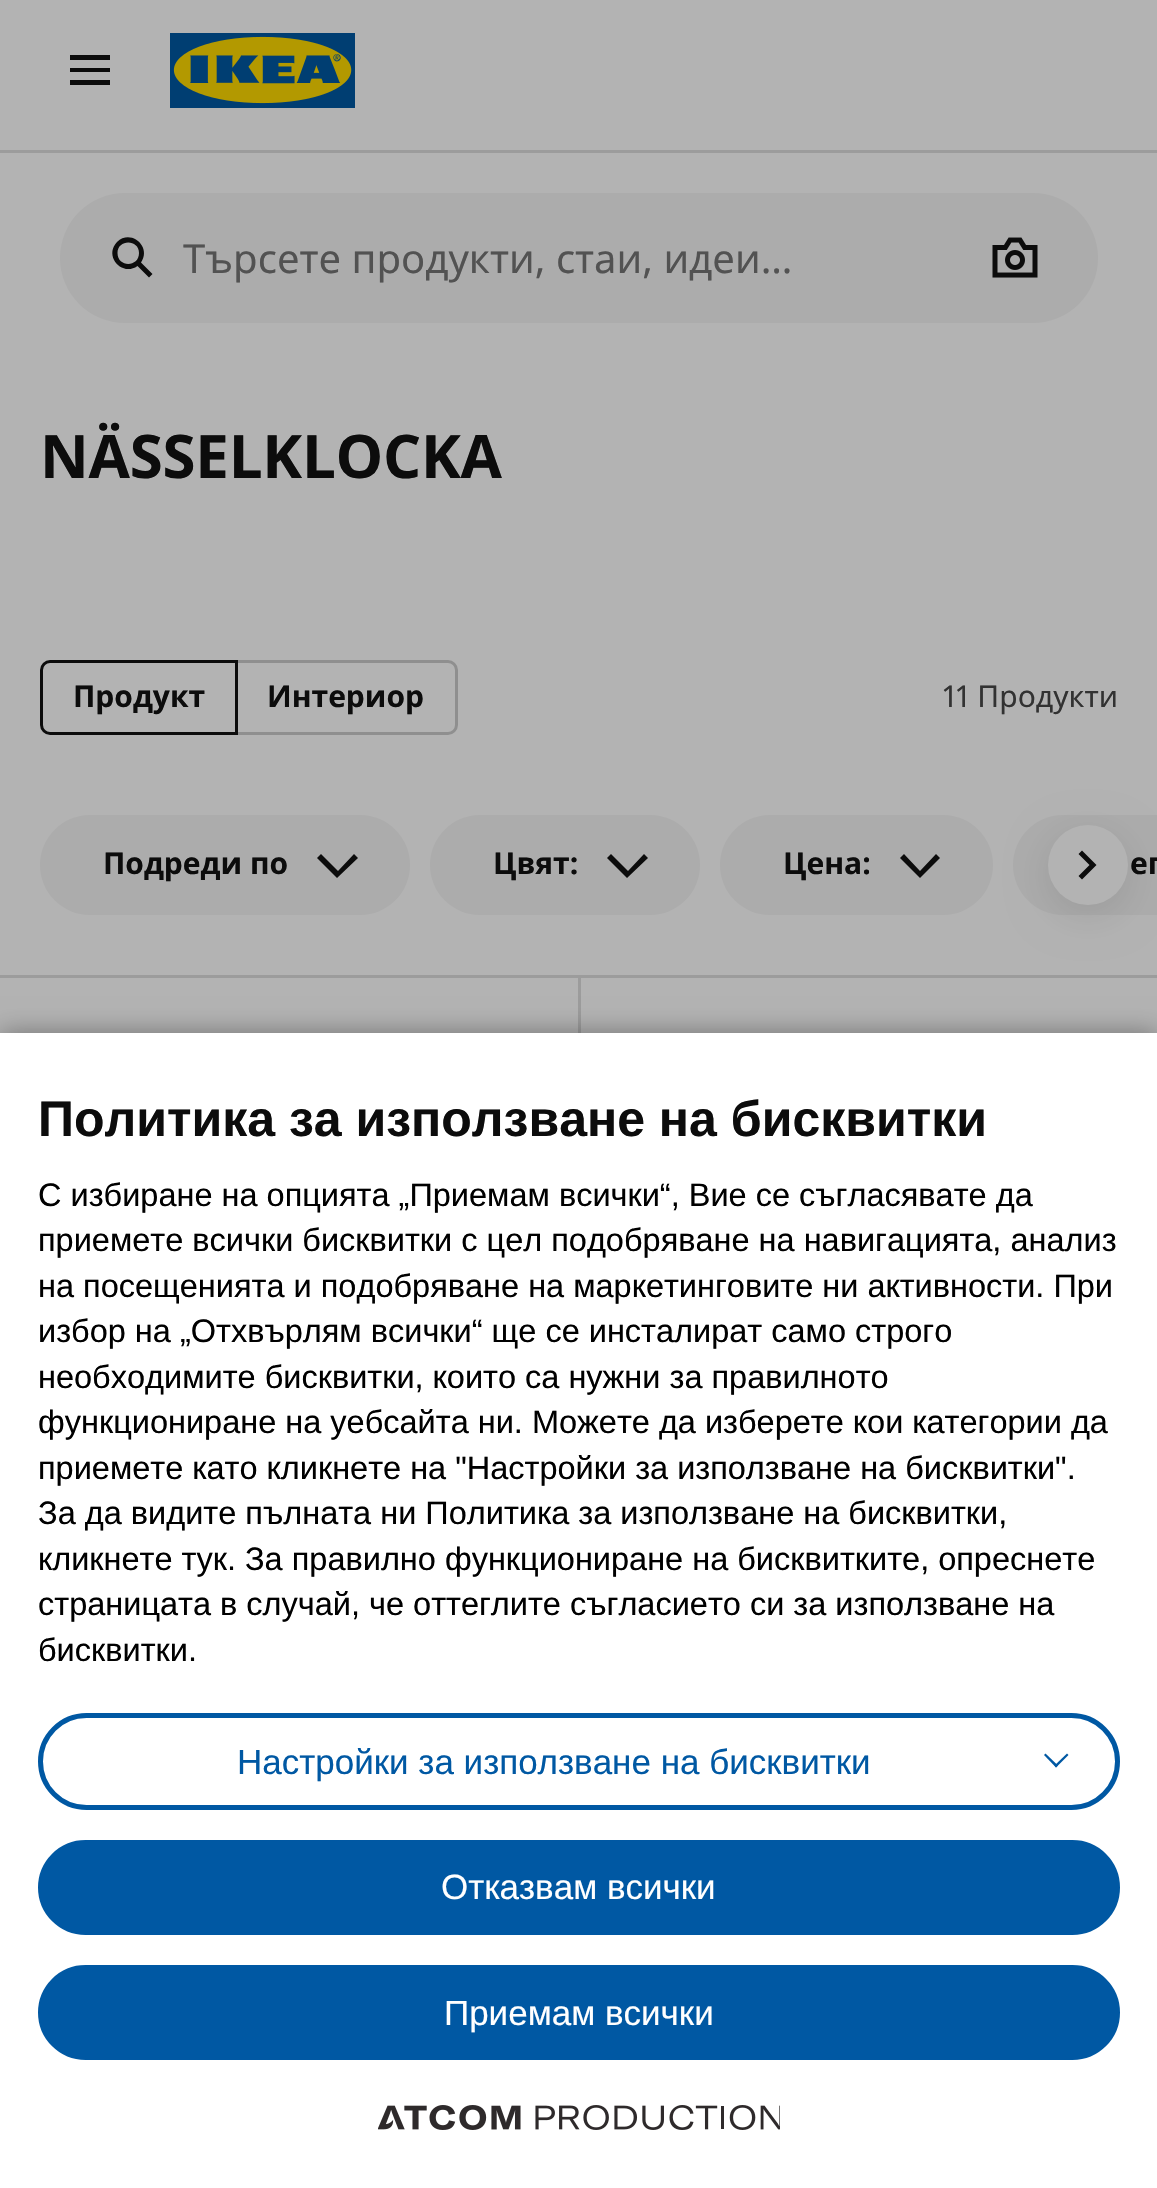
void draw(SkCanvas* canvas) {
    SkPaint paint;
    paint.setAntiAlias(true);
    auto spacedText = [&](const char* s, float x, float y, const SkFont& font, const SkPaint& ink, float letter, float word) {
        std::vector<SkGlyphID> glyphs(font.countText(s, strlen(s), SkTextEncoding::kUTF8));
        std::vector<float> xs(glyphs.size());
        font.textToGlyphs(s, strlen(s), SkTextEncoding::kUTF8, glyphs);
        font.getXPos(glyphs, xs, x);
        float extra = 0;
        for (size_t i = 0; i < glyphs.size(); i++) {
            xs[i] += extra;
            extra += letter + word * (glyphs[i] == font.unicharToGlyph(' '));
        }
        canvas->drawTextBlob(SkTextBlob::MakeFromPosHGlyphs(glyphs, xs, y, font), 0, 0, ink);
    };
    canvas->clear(0xFFB3B3B3);
    paint.setColor(0xFF0C0C0C);
    canvas->drawPath(SkPathBuilder(SkPathFillType::kEvenOdd).moveTo(110, 60).lineTo(70, 60).lineTo(70, 55).lineTo(110, 55).close().moveTo(110, 72).lineTo(70, 72).lineTo(70, 68).lineTo(110, 68).close().moveTo(110, 85).lineTo(70, 85).lineTo(70, 80).lineTo(110, 80).close().detach(), paint);
    canvas->drawImageRect(SkImages::DeferredFromEncodedData(SkData::MakeFromFileName("img1.png")), SkRect::MakeXYWH(170, 33, 185, 75), SkSamplingOptions());
    paint.setColor(0xFF9C9C9C);
    canvas->drawRect(SkRect::MakeXYWH(0, 150, 1157, 3), paint);
    paint.setColor(0xFFACACAC);
    canvas->drawRoundRect(SkRect::MakeXYWH(60, 193, 1038, 130), 65, 65, paint);
    paint.setColor(0xFF0C0C0C);
    canvas->drawPath(SkPathBuilder(SkPathFillType::kEvenOdd).moveTo(137.5f, 266).cubicTo(122, 277, 103.5f, 256, 117, 242).cubicTo(131, 228.5f, 152, 247, 141, 262.5f).lineTo(152.5f, 274).lineTo(149, 277.5f).close().moveTo(139, 253).cubicTo(139, 267.5f, 117.5f, 267.5f, 117.5f, 253).cubicTo(117.5f, 239, 139, 239, 139, 253).close().detach(), paint);
    canvas->save();
    canvas->clipRect(SkRect::MakeXYWH(183, 230, 782, 55));
    SkFont font1(fontMgr->matchFamilyStyle("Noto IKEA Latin", SkFontStyle::Normal()), 40);
    font1.setSubpixel(true);
    paint.setColor(0xFF525252);
    canvas->drawString("Търсете продукти, стаи, идеи…", 183, 273, font1, paint);
    canvas->restore();
    canvas->drawImageRect(SkImages::DeferredFromEncodedData(SkData::MakeFromFileName("img2.png")), SkRect::MakeXYWH(992, 237, 46, 41), SkSamplingOptions());
    SkFont font2(fontMgr->matchFamilyStyle("Noto IKEA Latin", SkFontStyle::Bold()), 60);
    font2.setSubpixel(true);
    paint.setColor(0xFF0C0C0C);
    spacedText("NÄSSELKLOCKA", 40, 478, font2, paint, -0.25f, 0);
    paint.setColor(0xFF9C9C9C);
    canvas->drawRect(SkRect::MakeXYWH(0, 975, 1157, 3), paint);
    paint.setStyle(SkPaint::kStroke_Style);
    paint.setStrokeWidth(3);
    paint.setColor(0xFF8F8F8F);
    canvas->drawPath(SkPathBuilder().moveTo(236.5f, 661.5f).lineTo(448, 661.5f).cubicTo(452.5f, 661.5f, 456.5f, 665.5f, 456.5f, 670).lineTo(456.5f, 725).cubicTo(456.5f, 729.5f, 452.5f, 733.5f, 448, 733.5f).lineTo(236.5f, 733.5f).close().detach(), paint);
    paint.setColor(0xFF0C0C0C);
    canvas->drawPath(SkPathBuilder().moveTo(50, 661.5f).lineTo(236.5f, 661.5f).lineTo(236.5f, 733.5f).lineTo(50, 733.5f).cubicTo(45.5f, 733.5f, 41.5f, 729.5f, 41.5f, 725).lineTo(41.5f, 670).cubicTo(41.5f, 665.5f, 45.5f, 661.5f, 50, 661.5f).close().detach(), paint);
    SkFont font3(fontMgr->matchFamilyStyle("Noto IKEA Latin", SkFontStyle::Bold()), 30);
    font3.setSubpixel(true);
    paint.setStyle(SkPaint::kFill_Style);
    canvas->drawString("Продукт", 73, 707, font3, paint);
    canvas->drawString("Интериор", 267, 707, font3, paint);
    SkFont font4(fontMgr->matchFamilyStyle("Noto IKEA Latin", SkFontStyle::Normal()), 30);
    font4.setSubpixel(true);
    paint.setColor(0xFF323232);
    canvas->drawString("11 Продукти", 943, 707, font4, paint);
    paint.setColor(0xFFACACAC);
    canvas->drawRoundRect(SkRect::MakeXYWH(720, 815, 273, 100), 50, 50, paint);
    canvas->drawPath(SkPathBuilder().moveTo(1063, 815).lineTo(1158, 815).lineTo(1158, 915).lineTo(1063, 915).cubicTo(1035.5f, 915, 1013, 892.5f, 1013, 865).cubicTo(1013, 837.5f, 1035.5f, 815, 1063, 815).close().detach(), paint);
    paint.setColor(0x1A000000);
    paint.setMaskFilter(SkMaskFilter::MakeBlur(kNormal_SkBlurStyle, 20));
    canvas->drawRoundRect(SkRect::MakeXYWH(1048, 835, 80, 80), 40, 40, paint);
    paint.setMaskFilter(nullptr);
    paint.setColor(0xFFB3B3B3);
    canvas->drawCircle(1088, 865, 40, paint);
    paint.setColor(0xFF0C0C0C);
    canvas->drawPath(SkPathBuilder(SkPathFillType::kEvenOdd).moveTo(1096.5f, 865).lineTo(1082, 879.5f).lineTo(1078.5f, 876).lineTo(1089.5f, 865).lineTo(1078.5f, 854).lineTo(1082, 850.5f).close().detach(), paint);
    paint.setColor(0xFFACACAC);
    canvas->drawRoundRect(SkRect::MakeXYWH(40, 815, 370, 100), 50, 50, paint);
    paint.setColor(0xFF0C0C0C);
    canvas->drawString("Подреди по", 103, 874, font3, paint);
    canvas->drawPath(SkPathBuilder(SkPathFillType::kEvenOdd).moveTo(337, 878).lineTo(317, 858).lineTo(321, 854).lineTo(338, 871).lineTo(354, 854).lineTo(358, 858).close().detach(), paint);
    paint.setColor(0xFFACACAC);
    canvas->drawRoundRect(SkRect::MakeXYWH(430, 815, 270, 100), 50, 50, paint);
    paint.setColor(0xFF0C0C0C);
    canvas->drawString("Цвят:", 493, 874, font3, paint);
    canvas->drawPath(SkPathBuilder(SkPathFillType::kEvenOdd).moveTo(627, 878).lineTo(607, 858).lineTo(611, 854).lineTo(628, 871).lineTo(644, 854).lineTo(648, 858).close().detach(), paint);
    canvas->drawString("Цена:", 783, 874, font3, paint);
    canvas->drawPath(SkPathBuilder(SkPathFillType::kEvenOdd).moveTo(920, 878).lineTo(900, 858).lineTo(904, 854).lineTo(920, 871).lineTo(936, 854).lineTo(940, 858).close().detach(), paint);
    canvas->drawString("ег", 1130, 874, font3, paint);
    paint.setColor(0xFF9C9C9C);
    canvas->drawRect(SkRect::MakeXYWH(578, 978, 3, 55), paint);
    paint.setColor(0x5E000000);
    paint.setMaskFilter(SkMaskFilter::MakeBlur(kNormal_SkBlurStyle, 12.5f));
    canvas->drawRect(SkRect::MakeXYWH(0, 1033, 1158, 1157), paint);
    paint.setMaskFilter(nullptr);
    paint.setColor(0xFFFFFFFF);
    canvas->drawRect(SkRect::MakeXYWH(0, 1033, 1157, 1155), paint);
    SkFont font5(fontMgr->matchFamilyStyle("Liberation Sans", SkFontStyle::Bold()), 50);
    font5.setSubpixel(true);
    paint.setColor(0xFF0C0C0C);
    canvas->drawString("Политика за използване на бисквитки", 38, 1136, font5, paint);
    SkFont font6(fontMgr->matchFamilyStyle("Liberation Sans", SkFontStyle::Normal()), 32.5f);
    font6.setSubpixel(true);
    paint.setColor(0xFF000000);
    canvas->drawString("С избиране на опцията „Приемам всички“, Вие се съгласявате да", 38, 1206, font6, paint);
    canvas->drawString("приемете всички бисквитки с цел подобряване на навигацията, анализ", 38, 1251, font6, paint);
    canvas->drawString("на посещенията и подобряване на маркетинговите ни активности. При", 38, 1297, font6, paint);
    canvas->drawString("избор на „Отхвърлям всички“ ще се инсталират само строго", 38, 1342, font6, paint);
    canvas->drawString("необходимитe бисквитки, които са нужни за правилното", 38, 1388, font6, paint);
    canvas->drawString("функциониране на уебсайта ни. Можете да изберете кои категории да", 38, 1433, font6, paint);
    canvas->drawString("приемете като кликнете на \"Настройки за използване на бисквитки\".", 38, 1479, font6, paint);
    canvas->drawString("За да видите пълната ни Политика за използване на бисквитки,", 38, 1524, font6, paint);
    canvas->drawString("кликнете тук. За правилно функциониране на бисквитките, опреснете", 38, 1570, font6, paint);
    canvas->drawString("страницата в случай, че оттеглите съгласието си за използване на", 38, 1615, font6, paint);
    canvas->drawString("бисквитки.", 38, 1661, font6, paint);
    paint.setStyle(SkPaint::kStroke_Style);
    paint.setStrokeWidth(5);
    paint.setColor(0xFF0058A3);
    canvas->drawRoundRect(SkRect::MakeXYWH(40.5f, 1715.5f, 1077, 92), 46, 46, paint);
    SkFont font7(fontMgr->matchFamilyStyle("Liberation Sans", SkFontStyle::Normal()), 35);
    font7.setSubpixel(true);
    paint.setStyle(SkPaint::kFill_Style);
    canvas->drawString("Настройки за използване на бисквитки", 237, 1774, font7, paint);
    canvas->drawPath(SkPathBuilder().moveTo(1067, 1753.5f).lineTo(1068.5f, 1755).lineTo(1056, 1767.5f).lineTo(1054.5f, 1765.5f).close().detach(), paint);
    canvas->drawPath(SkPathBuilder().moveTo(1045.5f, 1753.5f).lineTo(1058, 1765.5f).lineTo(1056, 1767.5f).lineTo(1044, 1755).close().detach(), paint);
    canvas->drawRoundRect(SkRect::MakeXYWH(40.5f, 1842.5f, 1077, 90), 45, 45, paint);
    paint.setStyle(SkPaint::kStroke_Style);
    canvas->drawRoundRect(SkRect::MakeXYWH(40.5f, 1842.5f, 1077, 90), 45, 45, paint);
    paint.setStyle(SkPaint::kFill_Style);
    paint.setColor(0xFFFFFFFF);
    canvas->drawString("Отказвам всички", 441, 1899, font7, paint);
    paint.setColor(0xFF0058A3);
    canvas->drawRoundRect(SkRect::MakeXYWH(40.5f, 1967.5f, 1077, 90), 45, 45, paint);
    paint.setStyle(SkPaint::kStroke_Style);
    canvas->drawRoundRect(SkRect::MakeXYWH(40.5f, 1967.5f, 1077, 90), 45, 45, paint);
    paint.setStyle(SkPaint::kFill_Style);
    paint.setColor(0xFFFFFFFF);
    canvas->drawString("Приемам всички", 444, 2025, font7, paint);
    canvas->drawImageRect(SkImages::DeferredFromEncodedData(SkData::MakeFromFileName("img3.png")), SkRect::MakeXYWH(378, 2105, 402, 25), SkSamplingOptions());
}
